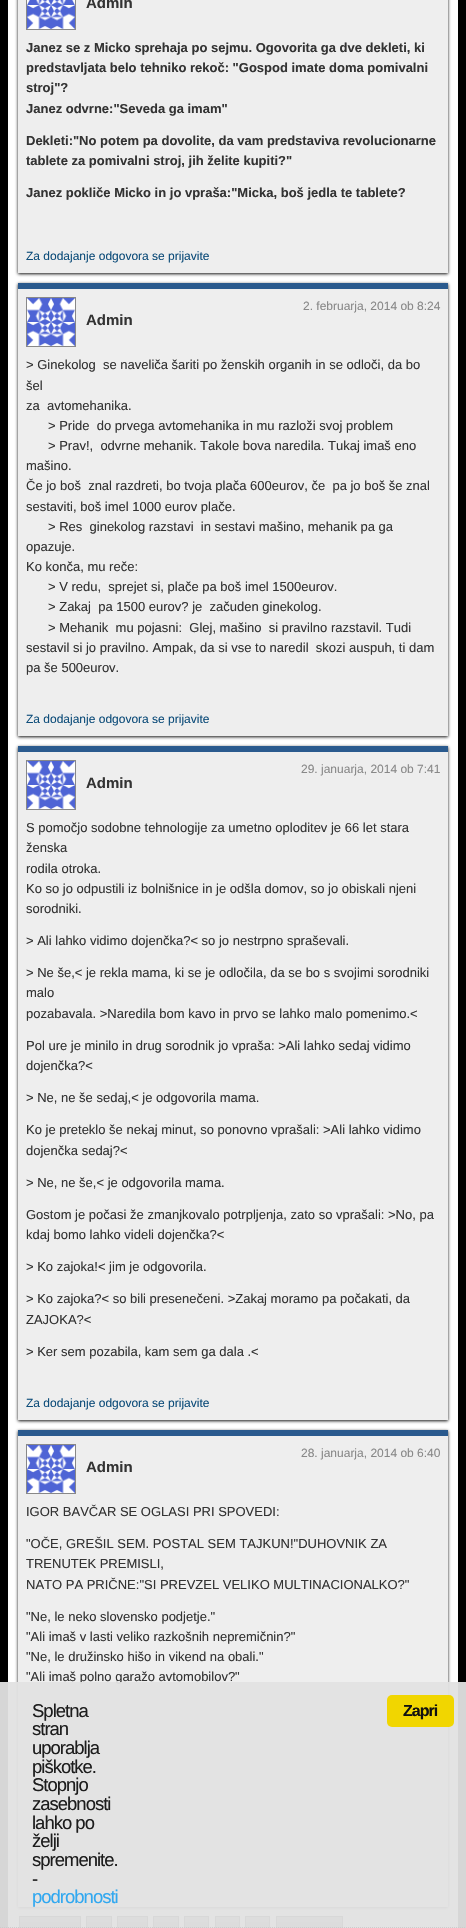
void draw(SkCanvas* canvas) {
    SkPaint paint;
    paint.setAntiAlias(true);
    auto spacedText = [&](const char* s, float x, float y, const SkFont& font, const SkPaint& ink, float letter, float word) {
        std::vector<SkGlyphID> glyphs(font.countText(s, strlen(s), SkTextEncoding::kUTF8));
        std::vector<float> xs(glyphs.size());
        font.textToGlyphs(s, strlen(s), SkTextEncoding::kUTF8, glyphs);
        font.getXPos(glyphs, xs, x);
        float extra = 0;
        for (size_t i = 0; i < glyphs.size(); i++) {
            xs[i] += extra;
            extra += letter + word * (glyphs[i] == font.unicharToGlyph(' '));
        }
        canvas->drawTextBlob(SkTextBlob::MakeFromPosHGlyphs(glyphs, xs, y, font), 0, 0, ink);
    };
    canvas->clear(0xFFFFFFFF);
    paint.setStyle(SkPaint::kStroke_Style);
    paint.setStrokeWidth(8);
    paint.setColor(0xFF000000);
    canvas->drawRect(SkRect::MakeXYWH(4, -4, 458, 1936), paint);
    paint.setStyle(SkPaint::kFill_Style);
    paint.setColor(0xFF111111);
    paint.setMaskFilter(SkMaskFilter::MakeBlur(kNormal_SkBlurStyle, 1.5f));
    canvas->drawRect(SkRect::MakeXYWH(18, -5, 430, 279), paint);
    paint.setMaskFilter(nullptr);
    paint.setColor(0xFFEEEEEE);
    canvas->drawRect(SkRect::MakeXYWH(18, 0, 430, 273), paint);
    paint.setStyle(SkPaint::kStroke_Style);
    paint.setStrokeWidth(1);
    paint.setColor(0xFF888888);
    canvas->drawRect(SkRect::MakeXYWH(26.5f, -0.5f, 49, 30), paint);
    canvas->drawImageRect(SkImages::DeferredFromEncodedData(SkData::MakeFromFileName("img1.png")), SkRect::MakeXYWH(27, 0, 48, 29), SkSamplingOptions());
    SkFont font1(fontMgr->matchFamilyStyle("Liberation Sans", SkFontStyle::Bold()), 15);
    font1.setSubpixel(true);
    paint.setStyle(SkPaint::kFill_Style);
    paint.setColor(0xFF333333);
    canvas->drawString("Admin", 86, 8, font1, paint);
    SkFont font2(fontMgr->matchFamilyStyle("Liberation Sans", SkFontStyle::Bold()), 13);
    font2.setSubpixel(true);
    canvas->drawString("Janez se z Micko sprehaja po sejmu. Ogovorita ga dve dekleti, ki", 26, 52, font2, paint);
    canvas->drawString("predstavljata belo tehniko rekoč: \"Gospod imate doma pomivalni", 26, 72, font2, paint);
    canvas->drawString("stroj\"?", 26, 92, font2, paint);
    canvas->drawString("Janez odvrne:\"Seveda ga imam\"", 26, 113, font2, paint);
    canvas->drawString("Dekleti:\"No potem pa dovolite, da vam predstaviva revolucionarne", 26, 145, font2, paint);
    canvas->drawString("tablete za pomivalni stroj, jih želite kupiti?\"", 26, 165, font2, paint);
    canvas->drawString("Janez pokliče Micko in jo vpraša:\"Micka, boš jedla te tablete?", 26, 197, font2, paint);
    SkFont font3(fontMgr->matchFamilyStyle("Liberation Sans", SkFontStyle::Normal()), 12);
    font3.setSubpixel(true);
    paint.setColor(0xFF0E4D7A);
    canvas->drawString("Za dodajanje odgovora se prijavite", 26, 260, font3, paint);
    paint.setColor(0xFF111111);
    paint.setMaskFilter(SkMaskFilter::MakeBlur(kNormal_SkBlurStyle, 1.5f));
    canvas->drawRect(SkRect::MakeXYWH(18, 284, 430, 453), paint);
    paint.setMaskFilter(nullptr);
    paint.setColor(0xFFEEEEEE);
    canvas->drawRect(SkRect::MakeXYWH(18, 289, 430, 447), paint);
    paint.setColor(0xFF2A5A8E);
    canvas->drawRect(SkRect::MakeXYWH(18, 283, 430, 6), paint);
    paint.setColor(0xFF888888);
    canvas->drawString("2. februarja, 2014 ob 8:24", 303, 310, font3, paint);
    paint.setStyle(SkPaint::kStroke_Style);
    canvas->drawRect(SkRect::MakeXYWH(26.5f, 297.5f, 49, 49), paint);
    canvas->drawImageRect(SkImages::DeferredFromEncodedData(SkData::MakeFromFileName("img2.png")), SkRect::MakeXYWH(27, 298, 48, 48), SkSamplingOptions());
    paint.setStyle(SkPaint::kFill_Style);
    paint.setColor(0xFF333333);
    canvas->drawString("Admin", 86, 325, font1, paint);
    SkFont font4(fontMgr->matchFamilyStyle("Liberation Sans", SkFontStyle::Normal()), 13);
    font4.setSubpixel(true);
    canvas->drawString("> Ginekolog  se naveliča šariti po ženskih organih in se odloči, da bo", 26, 369, font4, paint);
    canvas->drawString("šel", 26, 390, font4, paint);
    canvas->drawString("za  avtomehanika.", 26, 410, font4, paint);
    canvas->drawString("> Pride  do prvega avtomehanika in mu razloži svoj problem", 48, 430, font4, paint);
    canvas->drawString("> Prav!,  odvrne mehanik. Takole bova naredila. Tukaj imaš eno", 48, 450, font4, paint);
    canvas->drawString("mašino.", 26, 470, font4, paint);
    canvas->drawString("Če jo boš  znal razdreti, bo tvoja plača 600eurov, če  pa jo boš še znal", 26, 490, font4, paint);
    canvas->drawString("sestaviti, boš imel 1000 eurov plače.", 26, 511, font4, paint);
    canvas->drawString("> Res  ginekolog razstavi  in sestavi mašino, mehanik pa ga", 48, 531, font4, paint);
    canvas->drawString("opazuje.", 26, 551, font4, paint);
    canvas->drawString("Ko konča, mu reče:", 26, 571, font4, paint);
    canvas->drawString("> V redu,  sprejet si, plače pa boš imel 1500eurov.", 48, 591, font4, paint);
    canvas->drawString("> Zakaj  pa 1500 eurov? je  začuden ginekolog.", 48, 611, font4, paint);
    canvas->drawString("> Mehanik  mu pojasni:  Glej, mašino  si pravilno razstavil. Tudi", 48, 632, font4, paint);
    canvas->drawString("sestavil si jo pravilno. Ampak, da si vse to naredil  skozi auspuh, ti dam", 26, 652, font4, paint);
    canvas->drawString("pa še 500eurov.", 26, 672, font4, paint);
    paint.setColor(0xFF0E4D7A);
    canvas->drawString("Za dodajanje odgovora se prijavite", 26, 723, font3, paint);
    paint.setColor(0xFF111111);
    paint.setMaskFilter(SkMaskFilter::MakeBlur(kNormal_SkBlurStyle, 1.5f));
    canvas->drawRect(SkRect::MakeXYWH(18, 747, 430, 674), paint);
    paint.setMaskFilter(nullptr);
    paint.setColor(0xFFEEEEEE);
    canvas->drawRect(SkRect::MakeXYWH(18, 752, 430, 668), paint);
    paint.setColor(0xFF2A5A8E);
    canvas->drawRect(SkRect::MakeXYWH(18, 746, 430, 6), paint);
    paint.setColor(0xFF888888);
    canvas->drawString("29. januarja, 2014 ob 7:41", 301, 773, font3, paint);
    paint.setStyle(SkPaint::kStroke_Style);
    canvas->drawRect(SkRect::MakeXYWH(26.5f, 760.5f, 49, 49), paint);
    canvas->drawImageRect(SkImages::DeferredFromEncodedData(SkData::MakeFromFileName("img3.png")), SkRect::MakeXYWH(27, 761, 48, 48), SkSamplingOptions());
    paint.setStyle(SkPaint::kFill_Style);
    paint.setColor(0xFF333333);
    canvas->drawString("Admin", 86, 788, font1, paint);
    canvas->drawString("S pomočjo sodobne tehnologije za umetno oploditev je 66 let stara", 26, 832, font4, paint);
    canvas->drawString("ženska", 26, 852, font4, paint);
    canvas->drawString("rodila otroka.", 26, 873, font4, paint);
    canvas->drawString("Ko so jo odpustili iz bolnišnice in je odšla domov, so jo obiskali njeni", 26, 893, font4, paint);
    canvas->drawString("sorodniki.", 26, 913, font4, paint);
    canvas->drawString("> Ali lahko vidimo dojenčka?< so jo nestrpno spraševali.", 26, 945, font4, paint);
    canvas->drawString("> Ne še,< je rekla mama, ki se je odločila, da se bo s svojimi sorodniki", 26, 977, font4, paint);
    canvas->drawString("malo", 26, 997, font4, paint);
    canvas->drawString("pozabavala. >Naredila bom kavo in prvo se lahko malo pomenimo.<", 26, 1018, font4, paint);
    canvas->drawString("Pol ure je minilo in drug sorodnik jo vpraša: >Ali lahko sedaj vidimo", 26, 1050, font4, paint);
    canvas->drawString("dojenčka?<", 26, 1070, font4, paint);
    canvas->drawString("> Ne, ne še sedaj,< je odgovorila mama.", 26, 1102, font4, paint);
    canvas->drawString("Ko je preteklo še nekaj minut, so ponovno vprašali: >Ali lahko vidimo", 26, 1134, font4, paint);
    canvas->drawString("dojenčka sedaj?<", 26, 1155, font4, paint);
    canvas->drawString("> Ne, ne še,< je odgovorila mama.", 26, 1187, font4, paint);
    canvas->drawString("Gostom je počasi že zmanjkovalo potrpljenja, zato so vprašali: >No, pa", 26, 1219, font4, paint);
    canvas->drawString("kdaj bomo lahko videli dojenčka?<", 26, 1239, font4, paint);
    canvas->drawString("> Ko zajoka!< jim je odgovorila.", 26, 1271, font4, paint);
    canvas->drawString("> Ko zajoka?< so bili presenečeni. >Zakaj moramo pa počakati, da", 26, 1303, font4, paint);
    canvas->drawString("ZAJOKA?<", 26, 1324, font4, paint);
    canvas->drawString("> Ker sem pozabila, kam sem ga dala .<", 26, 1356, font4, paint);
    paint.setColor(0xFF0E4D7A);
    canvas->drawString("Za dodajanje odgovora se prijavite", 26, 1407, font3, paint);
    paint.setColor(0xFF111111);
    paint.setMaskFilter(SkMaskFilter::MakeBlur(kNormal_SkBlurStyle, 1.5f));
    canvas->drawRect(SkRect::MakeXYWH(18, 1431, 430, 477), paint);
    paint.setMaskFilter(nullptr);
    paint.setColor(0xFFEEEEEE);
    canvas->drawRect(SkRect::MakeXYWH(18, 1436, 430, 471), paint);
    paint.setColor(0xFF2A5A8E);
    canvas->drawRect(SkRect::MakeXYWH(18, 1430, 430, 6), paint);
    paint.setColor(0xFF888888);
    canvas->drawString("28. januarja, 2014 ob 6:40", 301, 1457, font3, paint);
    paint.setStyle(SkPaint::kStroke_Style);
    canvas->drawRect(SkRect::MakeXYWH(26.5f, 1444.5f, 49, 49), paint);
    canvas->drawImageRect(SkImages::DeferredFromEncodedData(SkData::MakeFromFileName("img3.png")), SkRect::MakeXYWH(27, 1445, 48, 48), SkSamplingOptions());
    paint.setStyle(SkPaint::kFill_Style);
    paint.setColor(0xFF333333);
    canvas->drawString("Admin", 86, 1472, font1, paint);
    canvas->drawString("IGOR BAVČAR SE OGLASI PRI SPOVEDI:", 26, 1516, font4, paint);
    canvas->drawString("\"OČE, GREŠIL SEM. POSTAL SEM TAJKUN!\"DUHOVNIK ZA", 26, 1548, font4, paint);
    canvas->drawString("TRENUTEK PREMISLI,", 26, 1568, font4, paint);
    canvas->drawString("NATO PA PRIČNE:\"SI PREVZEL VELIKO MULTINACIONALKO?\"", 26, 1589, font4, paint);
    canvas->drawString("\"Ne, le neko slovensko podjetje.\"", 26, 1621, font4, paint);
    canvas->drawString("\"Ali imaš v lasti veliko razkošnih nepremičnin?\"", 26, 1641, font4, paint);
    canvas->drawString("\"Ne, le družinsko hišo in vikend na obali.\"", 26, 1661, font4, paint);
    canvas->drawString("\"Ali imaš polno garažo avtomobilov?\"", 26, 1681, font4, paint);
    {
        const SkColor colors[] = {0xFF888888, 0xFF333333};
        const float stops[] = {0, 1};
        const SkPoint ends[] = {{50, 1917}, {50, 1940}};
        paint.setShader(SkGradientShader::MakeLinear(ends, colors, stops, 2, SkTileMode::kClamp));
        paint.setAlpha(255);
    }
    canvas->drawRect(SkRect::MakeXYWH(20, 1917, 60, 11), paint);
    paint.setStyle(SkPaint::kStroke_Style);
    paint.setShader(nullptr);
    paint.setColor(0xFF222222);
    canvas->drawRect(SkRect::MakeXYWH(19.5f, 1916.5f, 61, 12), paint);
    paint.setStyle(SkPaint::kFill_Style);
    {
        const SkColor colors[] = {0xFF888888, 0xFF333333};
        const float stops[] = {0, 1};
        const SkPoint ends[] = {{99, 1917}, {99, 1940}};
        paint.setShader(SkGradientShader::MakeLinear(ends, colors, stops, 2, SkTileMode::kClamp));
        paint.setAlpha(255);
    }
    canvas->drawRect(SkRect::MakeXYWH(87, 1917, 24, 11), paint);
    paint.setStyle(SkPaint::kStroke_Style);
    paint.setShader(nullptr);
    paint.setColor(0xFF222222);
    canvas->drawRect(SkRect::MakeXYWH(86.5f, 1916.5f, 25, 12), paint);
    paint.setStyle(SkPaint::kFill_Style);
    {
        const SkColor colors[] = {0xFF888888, 0xFF333333};
        const float stops[] = {0, 1};
        const SkPoint ends[] = {{133, 1917}, {133, 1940}};
        paint.setShader(SkGradientShader::MakeLinear(ends, colors, stops, 2, SkTileMode::kClamp));
        paint.setAlpha(255);
    }
    canvas->drawRect(SkRect::MakeXYWH(118, 1917, 29, 11), paint);
    paint.setStyle(SkPaint::kStroke_Style);
    paint.setShader(nullptr);
    paint.setColor(0xFF222222);
    canvas->drawRect(SkRect::MakeXYWH(117.5f, 1916.5f, 30, 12), paint);
    paint.setStyle(SkPaint::kFill_Style);
    {
        const SkColor colors[] = {0xFF888888, 0xFF333333};
        const float stops[] = {0, 1};
        const SkPoint ends[] = {{166, 1917}, {166, 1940}};
        paint.setShader(SkGradientShader::MakeLinear(ends, colors, stops, 2, SkTileMode::kClamp));
        paint.setAlpha(255);
    }
    canvas->drawRect(SkRect::MakeXYWH(154, 1917, 24, 11), paint);
    paint.setStyle(SkPaint::kStroke_Style);
    paint.setShader(nullptr);
    paint.setColor(0xFF222222);
    canvas->drawRect(SkRect::MakeXYWH(153.5f, 1916.5f, 25, 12), paint);
    paint.setStyle(SkPaint::kFill_Style);
    {
        const SkColor colors[] = {0xFF888888, 0xFF333333};
        const float stops[] = {0, 1};
        const SkPoint ends[] = {{197, 1917}, {197, 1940}};
        paint.setShader(SkGradientShader::MakeLinear(ends, colors, stops, 2, SkTileMode::kClamp));
        paint.setAlpha(255);
    }
    canvas->drawRect(SkRect::MakeXYWH(185, 1917, 23, 11), paint);
    paint.setStyle(SkPaint::kStroke_Style);
    paint.setShader(nullptr);
    paint.setColor(0xFF222222);
    canvas->drawRect(SkRect::MakeXYWH(184.5f, 1916.5f, 24, 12), paint);
    paint.setStyle(SkPaint::kFill_Style);
    {
        const SkColor colors[] = {0xFF888888, 0xFF333333};
        const float stops[] = {0, 1};
        const SkPoint ends[] = {{228, 1917}, {228, 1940}};
        paint.setShader(SkGradientShader::MakeLinear(ends, colors, stops, 2, SkTileMode::kClamp));
        paint.setAlpha(255);
    }
    canvas->drawRect(SkRect::MakeXYWH(216, 1917, 23, 11), paint);
    paint.setStyle(SkPaint::kStroke_Style);
    paint.setShader(nullptr);
    paint.setColor(0xFF222222);
    canvas->drawRect(SkRect::MakeXYWH(215.5f, 1916.5f, 24, 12), paint);
    paint.setStyle(SkPaint::kFill_Style);
    {
        const SkColor colors[] = {0xFF888888, 0xFF333333};
        const float stops[] = {0, 1};
        const SkPoint ends[] = {{258, 1917}, {258, 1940}};
        paint.setShader(SkGradientShader::MakeLinear(ends, colors, stops, 2, SkTileMode::kClamp));
        paint.setAlpha(255);
    }
    canvas->drawRect(SkRect::MakeXYWH(246, 1917, 23, 11), paint);
    paint.setStyle(SkPaint::kStroke_Style);
    paint.setShader(nullptr);
    paint.setColor(0xFF222222);
    canvas->drawRect(SkRect::MakeXYWH(245.5f, 1916.5f, 24, 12), paint);
    paint.setStyle(SkPaint::kFill_Style);
    {
        const SkColor colors[] = {0xFF888888, 0xFF333333};
        const float stops[] = {0, 1};
        const SkPoint ends[] = {{310, 1917}, {310, 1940}};
        paint.setShader(SkGradientShader::MakeLinear(ends, colors, stops, 2, SkTileMode::kClamp));
        paint.setAlpha(255);
    }
    canvas->drawRect(SkRect::MakeXYWH(277, 1917, 65, 11), paint);
    paint.setStyle(SkPaint::kStroke_Style);
    paint.setShader(nullptr);
    paint.setColor(0xFF222222);
    canvas->drawRect(SkRect::MakeXYWH(276.5f, 1916.5f, 66, 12), paint);
    paint.setStyle(SkPaint::kFill_Style);
    paint.setColor(0xF2E2E2E2);
    canvas->drawRect(SkRect::MakeXYWH(0, 1682, 466, 246), paint);
    paint.setStyle(SkPaint::kStroke_Style);
    paint.setColor(0xFFCCCCCC);
    paint.setPathEffect(SkDashPathEffect::Make({{1, 1}}, 0));
    canvas->drawPath(SkPathBuilder().moveTo(0, 1927.5f).lineTo(466, 1927.5f).detach(), paint);
    paint.setPathEffect(nullptr);
    SkFont font5(fontMgr->matchFamilyStyle("Liberation Sans", SkFontStyle::Normal()), 18.5f);
    font5.setSubpixel(true);
    paint.setStyle(SkPaint::kFill_Style);
    paint.setColor(0xFF1D1D1D);
    spacedText("Spletna", 32, 1717, font5, paint, -1, 0);
    spacedText("stran", 32, 1735, font5, paint, -1, 0);
    spacedText("uporablja", 32, 1754, font5, paint, -1, 0);
    spacedText("piškotke.", 32, 1773, font5, paint, -1, 0);
    spacedText("Stopnjo", 32, 1791, font5, paint, -1, 0);
    spacedText("zasebnosti", 32, 1810, font5, paint, -1, 0);
    spacedText("lahko po", 32, 1829, font5, paint, -1, 0);
    spacedText("želji", 32, 1847, font5, paint, -1, 0);
    spacedText("spremenite.", 32, 1866, font5, paint, -1, 0);
    spacedText("-", 32, 1885, font5, paint, -1, 0);
    paint.setColor(0xFF31A8F0);
    spacedText("podrobnosti", 32, 1903, font5, paint, -1, 0);
    paint.setColor(0xFFF1D600);
    canvas->drawRoundRect(SkRect::MakeXYWH(387, 1695, 67, 32), 5, 5, paint);
    SkFont font6(fontMgr->matchFamilyStyle("Liberation Sans", SkFontStyle::Bold()), 16);
    font6.setSubpixel(true);
    paint.setColor(0xFF111111);
    spacedText("Zapri", 403, 1716, font6, paint, -1, 0);
}
